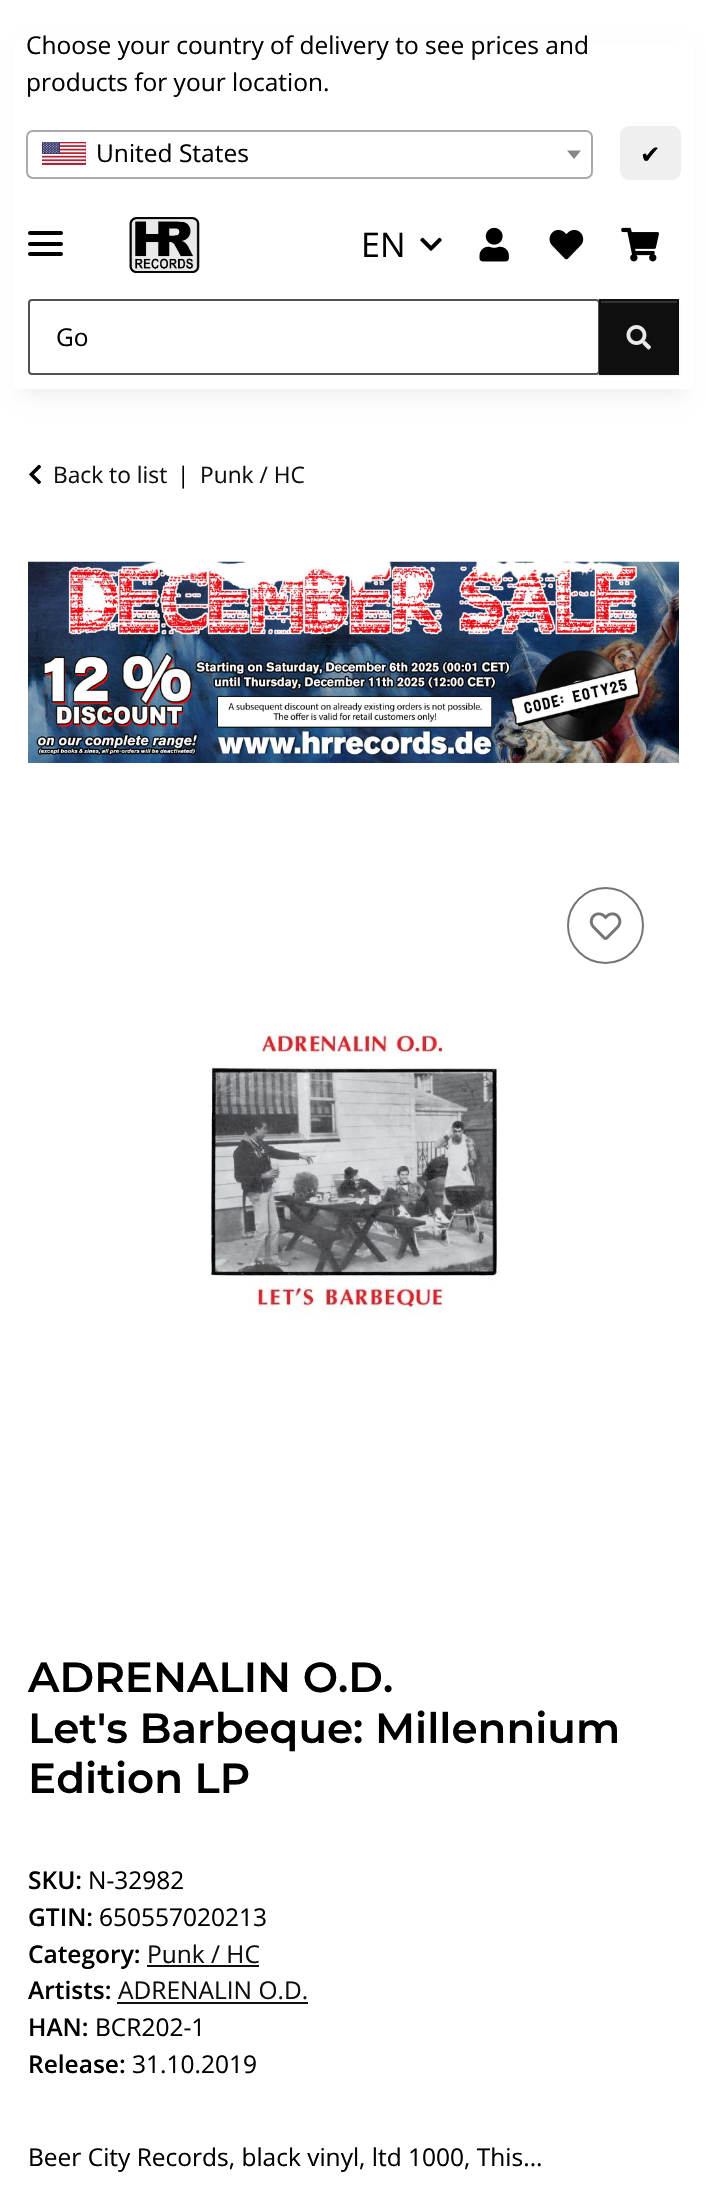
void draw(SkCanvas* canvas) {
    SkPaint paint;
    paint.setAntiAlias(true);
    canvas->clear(0xFFFFFFFF);
    paint.setColor(0x0F000000);
    paint.setMaskFilter(SkMaskFilter::MakeBlur(kNormal_SkBlurStyle, 8));
    canvas->drawRect(SkRect::MakeXYWH(21, 49, 665, 347), paint);
    paint.setMaskFilter(nullptr);
    paint.setColor(0xFFFFFFFF);
    canvas->drawRect(SkRect::MakeXYWH(13, 41, 681, 348), paint);
    SkFont font1(fontMgr->matchFamilyStyle("Open Sans", SkFontStyle::Normal()), 24.5f);
    font1.setSubpixel(true);
    paint.setColor(0xFF000000);
    canvas->drawString("Choose your country of delivery to see prices and", 26, 54, font1, paint);
    canvas->drawString("products for your location.", 26, 91, font1, paint);
    paint.setStyle(SkPaint::kStroke_Style);
    paint.setStrokeWidth(2);
    paint.setColor(0xFFAAAAAA);
    canvas->drawRoundRect(SkRect::MakeXYWH(27, 131, 565, 47), 6, 6, paint);
    canvas->drawImageRect(SkImages::DeferredFromEncodedData(SkData::MakeFromFileName("img1.png")), SkRect::MakeXYWH(42, 142, 44, 23), SkSamplingOptions());
    paint.setStyle(SkPaint::kFill_Style);
    paint.setColor(0xFF000000);
    canvas->drawString("United States", 96, 162, font1, paint);
    paint.setColor(0xFF888888);
    canvas->drawPath(SkPathBuilder().moveTo(567, 150.5f).lineTo(581, 150.5f).lineTo(574, 159).close().detach(), paint);
    paint.setColor(0xFFEFEFEF);
    canvas->drawRoundRect(SkRect::MakeXYWH(620, 126, 61, 54), 9, 9, paint);
    SkFont font2(fontMgr->matchFamilyStyle("DejaVu Sans", SkFontStyle::Normal()), 24.5f);
    font2.setSubpixel(true);
    paint.setColor(0xFF000000);
    canvas->drawString("✔", 640, 163, font2, paint);
    canvas->drawRoundRect(SkRect::MakeXYWH(28, 242, 35, 4), 2, 2, paint);
    canvas->drawRoundRect(SkRect::MakeXYWH(28, 231, 35, 4), 2, 2, paint);
    canvas->drawRoundRect(SkRect::MakeXYWH(28, 252, 35, 4), 2, 2, paint);
    canvas->drawImageRect(SkImages::DeferredFromEncodedData(SkData::MakeFromFileName("img2.png")), SkRect::MakeXYWH(129, 217, 71, 56), SkSamplingOptions());
    SkFont font3(fontMgr->matchFamilyStyle("Open Sans", SkFontStyle::Normal()), 34);
    font3.setSubpixel(true);
    canvas->drawString("EN", 361, 257, font3, paint);
    canvas->drawImageRect(SkImages::DeferredFromEncodedData(SkData::MakeFromFileName("img3.png")), SkRect::MakeXYWH(420, 237, 22, 14), SkSamplingOptions());
    canvas->drawImageRect(SkImages::DeferredFromEncodedData(SkData::MakeFromFileName("img4.png")), SkRect::MakeXYWH(479, 227, 30, 35), SkSamplingOptions());
    canvas->drawImageRect(SkImages::DeferredFromEncodedData(SkData::MakeFromFileName("img5.png")), SkRect::MakeXYWH(549, 230, 35, 30), SkSamplingOptions());
    canvas->drawImageRect(SkImages::DeferredFromEncodedData(SkData::MakeFromFileName("img6.png")), SkRect::MakeXYWH(621, 227, 38, 35), SkSamplingOptions());
    paint.setStyle(SkPaint::kStroke_Style);
    paint.setColor(0xFF525252);
    canvas->drawRoundRect(SkRect::MakeXYWH(29, 300, 570, 74), 3, 3, paint);
    paint.setStyle(SkPaint::kFill_Style);
    paint.setColor(0xFF000000);
    canvas->drawString("Go", 56, 346, font1, paint);
    paint.setColor(0x12000000);
    paint.setMaskFilter(SkMaskFilter::MakeBlur(kNormal_SkBlurStyle, 1));
    canvas->drawRect(SkRect::MakeXYWH(599, 301, 80, 75), paint);
    paint.setMaskFilter(nullptr);
    paint.setColor(0xFF0F0F0F);
    canvas->drawRect(SkRect::MakeXYWH(601, 303, 76, 70), paint);
    paint.setColor(0xFF333333);
    canvas->drawRect(SkRect::MakeXYWH(600, 301, 77, 2), paint);
    paint.setStyle(SkPaint::kStroke_Style);
    paint.setColor(0xFF0F0F0F);
    canvas->drawRect(SkRect::MakeXYWH(600, 300, 78, 74), paint);
    canvas->drawImageRect(SkImages::DeferredFromEncodedData(SkData::MakeFromFileName("img7.png")), SkRect::MakeXYWH(626, 325, 25, 25), SkSamplingOptions());
    canvas->drawImageRect(SkImages::DeferredFromEncodedData(SkData::MakeFromFileName("img8.png")), SkRect::MakeXYWH(29, 464, 12, 21), SkSamplingOptions());
    SkFont font4(fontMgr->matchFamilyStyle("Open Sans", SkFontStyle::Normal()), 22.75f);
    font4.setSubpixel(true);
    paint.setStyle(SkPaint::kFill_Style);
    canvas->drawString("Back to list", 53, 483, font4, paint);
    paint.setColor(0xFF000000);
    canvas->drawString("|", 177, 483, font4, paint);
    paint.setColor(0xFF0F0F0F);
    canvas->drawString("Punk / HC", 200, 483, font4, paint);
    canvas->drawImageRect(SkImages::DeferredFromEncodedData(SkData::MakeFromFileName("img9.png")), SkRect::MakeXYWH(28, 561, 651, 202), SkSamplingOptions());
    paint.setStyle(SkPaint::kStroke_Style);
    paint.setColor(0xFF757575);
    canvas->drawCircle(605.5f, 925.5f, 37.5f, paint);
    canvas->drawImageRect(SkImages::DeferredFromEncodedData(SkData::MakeFromFileName("img10.png")), SkRect::MakeXYWH(589, 912, 33, 28), SkSamplingOptions());
    canvas->drawImageRect(SkImages::DeferredFromEncodedData(SkData::MakeFromFileName("img11.png")), SkRect::MakeXYWH(209, 1027, 291, 288), SkSamplingOptions());
    SkFont font5(fontMgr->matchFamilyStyle("Montserrat", SkFontStyle(600, SkFontStyle::kNormal_Width, SkFontStyle::kUpright_Slant)), 42);
    font5.setSubpixel(true);
    paint.setStyle(SkPaint::kFill_Style);
    paint.setColor(0xFF000000);
    canvas->drawString("ADRENALIN O.D.", 28, 1692, font5, paint);
    canvas->drawString("Let's Barbeque: Millennium", 28, 1743, font5, paint);
    canvas->drawString("Edition LP", 28, 1793, font5, paint);
    SkFont font6(fontMgr->matchFamilyStyle("Open Sans", SkFontStyle(600, SkFontStyle::kNormal_Width, SkFontStyle::kUpright_Slant)), 24.5f);
    font6.setSubpixel(true);
    canvas->drawString("SKU:", 28, 1889, font6, paint);
    canvas->drawString("N-32982", 88, 1889, font1, paint);
    canvas->drawString("GTIN:", 28, 1926, font6, paint);
    canvas->drawString("650557020213", 99, 1926, font1, paint);
    canvas->drawString("Category:", 28, 1963, font6, paint);
    paint.setColor(0xFF0F0F0F);
    canvas->drawString("Punk / HC", 147, 1963, font1, paint);
    canvas->drawRect(SkRect::MakeXYWH(147, 1965, 112, 2), paint);
    paint.setColor(0xFF000000);
    canvas->drawString("Artists:", 28, 1999, font6, paint);
    paint.setColor(0xFF0F0F0F);
    canvas->drawString("ADRENALIN O.D.", 118, 1999, font1, paint);
    canvas->drawRect(SkRect::MakeXYWH(117, 2002, 191, 2), paint);
    paint.setColor(0xFF000000);
    canvas->drawString("HAN:", 28, 2036, font6, paint);
    canvas->drawString("BCR202-1", 95, 2036, font1, paint);
    canvas->drawString("Release:", 28, 2073, font6, paint);
    canvas->drawString("31.10.2019", 132, 2073, font1, paint);
    canvas->drawString("Beer City Records, black vinyl, ltd 1000, This...", 28, 2166, font1, paint);
}
